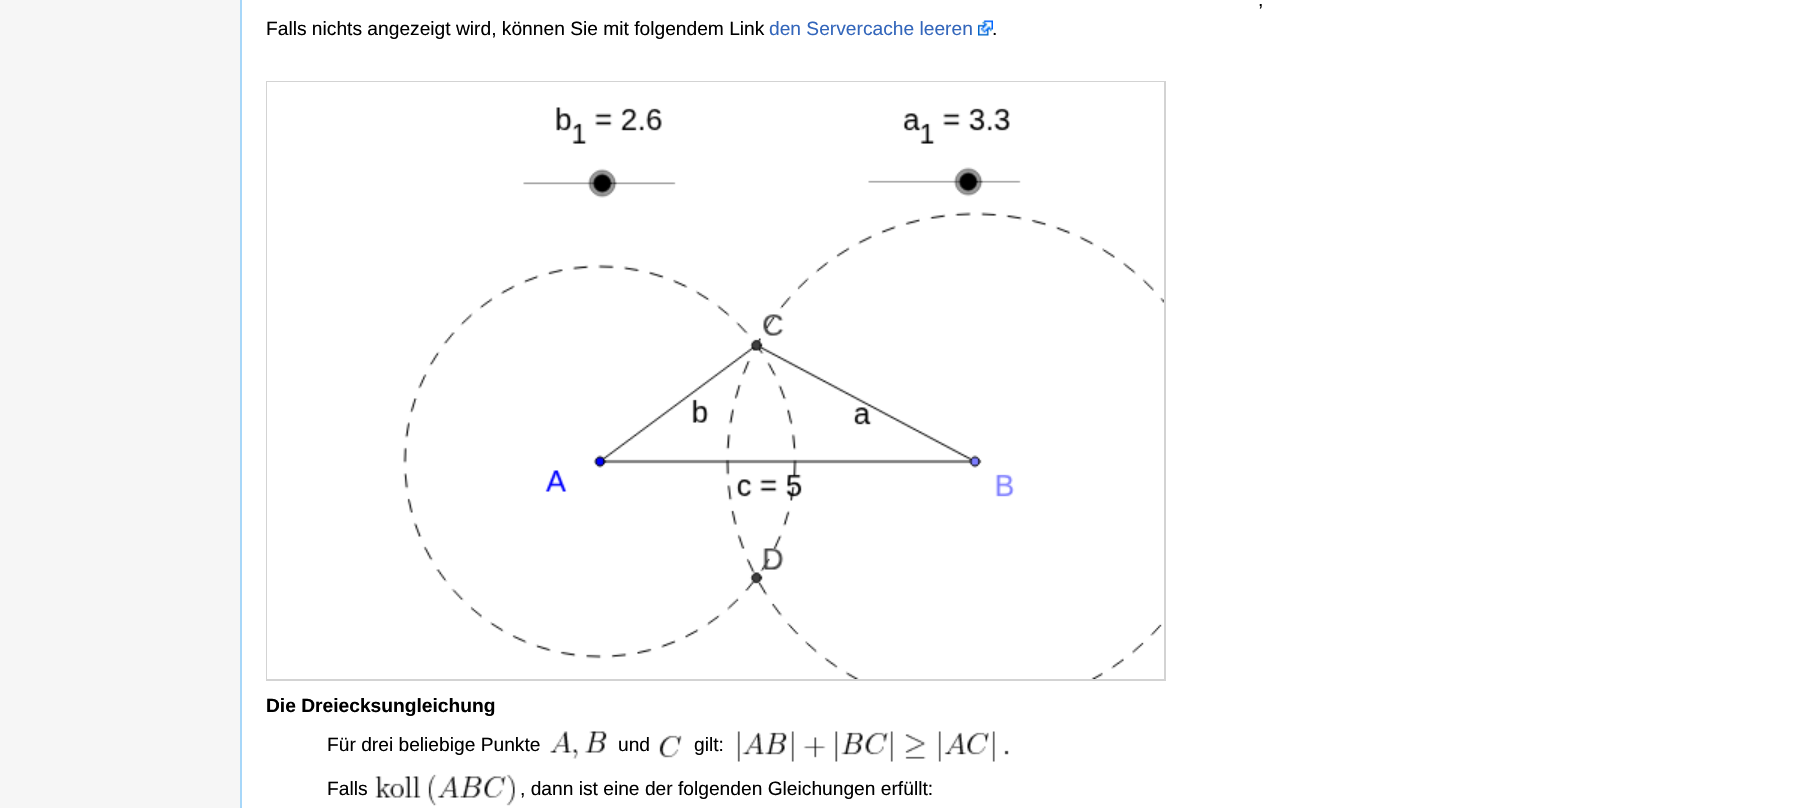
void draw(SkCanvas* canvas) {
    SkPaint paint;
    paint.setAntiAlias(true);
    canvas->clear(0xFFF6F6F6);
    paint.setColor(0xFFFFFFFF);
    canvas->drawRect(SkRect::MakeXYWH(242, 0, 1570, 808), paint);
    paint.setColor(0xFFA7D7F9);
    canvas->drawRect(SkRect::MakeXYWH(240, 0, 2, 808), paint);
    SkFont font1(fontMgr->matchFamilyStyle("Liberation Sans", SkFontStyle::Normal()), 19.2f);
    font1.setSubpixel(true);
    paint.setColor(0xFF000000);
    canvas->drawString(",", 1258, 6, font1, paint);
    canvas->drawString("Falls nichts angezeigt wird, können Sie mit folgendem Link", 266, 35, font1, paint);
    paint.setColor(0xFF3366BB);
    canvas->drawString("den Servercache leeren", 769, 35, font1, paint);
    canvas->drawImageRect(SkImages::DeferredFromEncodedData(SkData::MakeFromFileName("img1.png")), SkRect::MakeXYWH(978, 20, 15, 16), SkSamplingOptions());
    paint.setColor(0xFF000000);
    canvas->drawString(".", 992, 35, font1, paint);
    paint.setColor(0xFFD3D3D3);
    canvas->drawRect(SkRect::MakeXYWH(266, 81, 900, 600), paint);
    canvas->drawImageRect(SkImages::DeferredFromEncodedData(SkData::MakeFromFileName("img2.png")), SkRect::MakeXYWH(267, 82, 897, 597), SkSamplingOptions());
    SkFont font2(fontMgr->matchFamilyStyle("Liberation Sans", SkFontStyle::Bold()), 19.2f);
    font2.setSubpixel(true);
    paint.setColor(0xFF000000);
    canvas->drawString("Die Dreiecksungleichung", 266, 712, font2, paint);
    canvas->drawString("Für drei beliebige Punkte", 327, 751, font1, paint);
    canvas->drawImageRect(SkImages::DeferredFromEncodedData(SkData::MakeFromFileName("img3.png")), SkRect::MakeXYWH(550, 731, 57, 28), SkSamplingOptions());
    canvas->drawString("und", 618, 751, font1, paint);
    canvas->drawImageRect(SkImages::DeferredFromEncodedData(SkData::MakeFromFileName("img4.png")), SkRect::MakeXYWH(659, 735, 23, 23), SkSamplingOptions());
    canvas->drawString("gilt:", 694, 751, font1, paint);
    canvas->drawImageRect(SkImages::DeferredFromEncodedData(SkData::MakeFromFileName("img5.png")), SkRect::MakeXYWH(737, 731, 272, 31), SkSamplingOptions());
    canvas->drawString("Falls", 327, 795, font1, paint);
    canvas->drawImageRect(SkImages::DeferredFromEncodedData(SkData::MakeFromFileName("img6.png")), SkRect::MakeXYWH(375, 774, 140, 32), SkSamplingOptions());
    canvas->drawString(", dann ist eine der folgenden Gleichungen erfüllt:", 520, 795, font1, paint);
}
